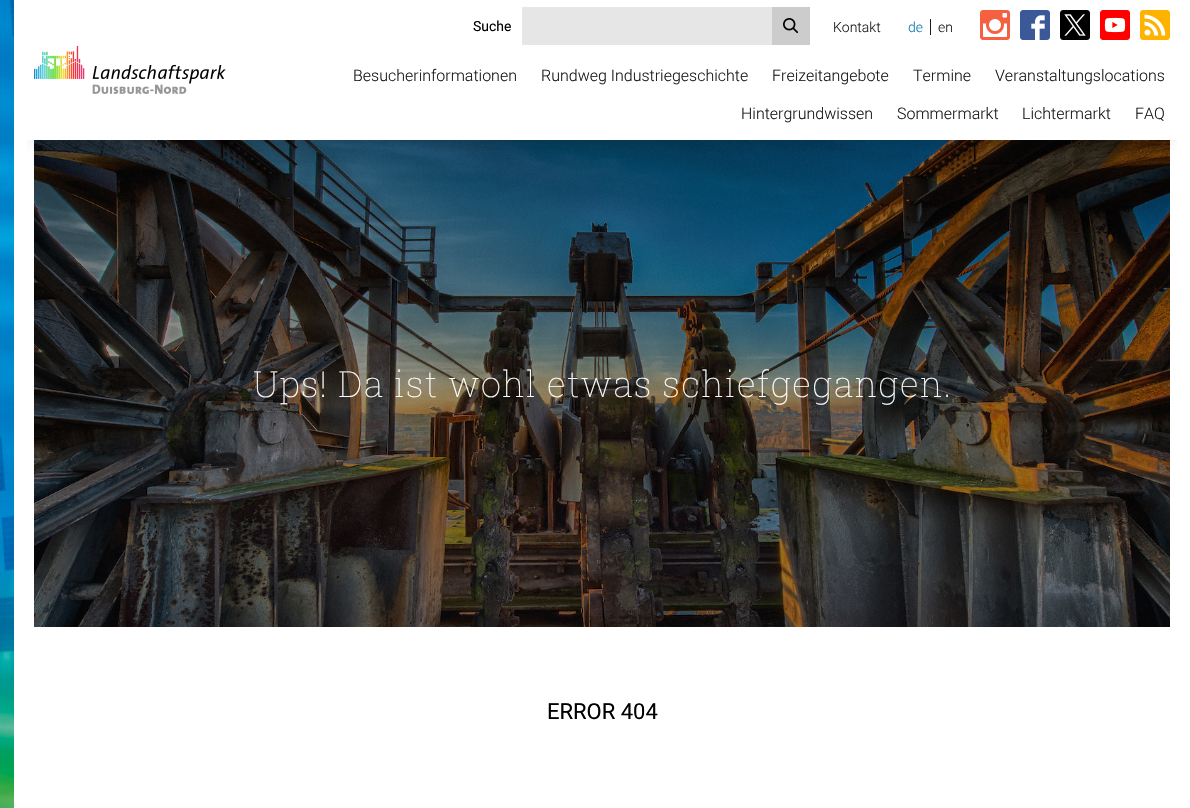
void draw(SkCanvas* canvas) {
    SkPaint paint;
    paint.setAntiAlias(true);
    auto spacedText = [&](const char* s, float x, float y, const SkFont& font, const SkPaint& ink, float letter, float word) {
        std::vector<SkGlyphID> glyphs(font.countText(s, strlen(s), SkTextEncoding::kUTF8));
        std::vector<float> xs(glyphs.size());
        font.textToGlyphs(s, strlen(s), SkTextEncoding::kUTF8, glyphs);
        font.getXPos(glyphs, xs, x);
        float extra = 0;
        for (size_t i = 0; i < glyphs.size(); i++) {
            xs[i] += extra;
            extra += letter + word * (glyphs[i] == font.unicharToGlyph(' '));
        }
        canvas->drawTextBlob(SkTextBlob::MakeFromPosHGlyphs(glyphs, xs, y, font), 0, 0, ink);
    };
    canvas->clear(0xFFFFFFFF);
    canvas->drawImageRect(SkImages::DeferredFromEncodedData(SkData::MakeFromFileName("img1.png")), SkRect::MakeXYWH(0, 0, 14, 808), SkSamplingOptions());
    canvas->drawImageRect(SkImages::DeferredFromEncodedData(SkData::MakeFromFileName("img9.png")), SkRect::MakeXYWH(34, 140, 1136, 487), SkSamplingOptions());
    canvas->save();
    canvas->clipRect(SkRect::MakeXYWH(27, 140, 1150, 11));
    paint.setColor(0x33000000);
    paint.setMaskFilter(SkMaskFilter::MakeBlur(kNormal_SkBlurStyle, 10));
    canvas->drawRect(SkRect::MakeXYWH(34, 38, 1136, 100), paint);
    paint.setMaskFilter(nullptr);
    canvas->restore();
    canvas->drawImageRect(SkImages::DeferredFromEncodedData(SkData::MakeFromFileName("img2.png")), SkRect::MakeXYWH(34, 46, 192, 48), SkSamplingOptions());
    SkFont font1(fontMgr->matchFamilyStyle("Roboto", SkFontStyle::Normal()), 14);
    font1.setSubpixel(true);
    paint.setColor(0xFF000000);
    canvas->drawString("Suche", 473, 31, font1, paint);
    paint.setColor(0xFFE6E6E6);
    canvas->drawRect(SkRect::MakeXYWH(522, 7, 250, 38), paint);
    paint.setColor(0xFFCCCCCC);
    canvas->drawRect(SkRect::MakeXYWH(772, 7, 38, 38), paint);
    canvas->drawImageRect(SkImages::DeferredFromEncodedData(SkData::MakeFromFileName("img3.png")), SkRect::MakeXYWH(783, 18, 15, 15), SkSamplingOptions());
    SkFont font2(fontMgr->matchFamilyStyle("Roboto", SkFontStyle(300, SkFontStyle::kNormal_Width, SkFontStyle::kUpright_Slant)), 14);
    font2.setSubpixel(true);
    paint.setColor(0xFF1A1A1A);
    canvas->drawString("Kontakt", 833, 32, font2, paint);
    paint.setColor(0xFF087AAD);
    canvas->drawString("de", 908, 32, font2, paint);
    paint.setColor(0xFF1A1A1A);
    canvas->drawRect(SkRect::MakeXYWH(930, 19, 1, 16), paint);
    canvas->drawString("en", 938, 32, font2, paint);
    canvas->drawImageRect(SkImages::DeferredFromEncodedData(SkData::MakeFromFileName("img4.png")), SkRect::MakeXYWH(980, 10, 30, 30), SkSamplingOptions());
    canvas->drawImageRect(SkImages::DeferredFromEncodedData(SkData::MakeFromFileName("img5.png")), SkRect::MakeXYWH(1020, 10, 30, 30), SkSamplingOptions());
    canvas->drawImageRect(SkImages::DeferredFromEncodedData(SkData::MakeFromFileName("img6.png")), SkRect::MakeXYWH(1060, 10, 30, 30), SkSamplingOptions());
    canvas->drawImageRect(SkImages::DeferredFromEncodedData(SkData::MakeFromFileName("img7.png")), SkRect::MakeXYWH(1100, 10, 30, 30), SkSamplingOptions());
    canvas->drawImageRect(SkImages::DeferredFromEncodedData(SkData::MakeFromFileName("img8.png")), SkRect::MakeXYWH(1140, 10, 30, 30), SkSamplingOptions());
    SkFont font3(fontMgr->matchFamilyStyle("Roboto", SkFontStyle(300, SkFontStyle::kNormal_Width, SkFontStyle::kUpright_Slant)), 16);
    font3.setSubpixel(true);
    canvas->drawString("Besucherinformationen", 353, 81, font3, paint);
    canvas->drawString("Rundweg Industriegeschichte", 541, 81, font3, paint);
    canvas->drawString("Freizeitangebote", 772, 81, font3, paint);
    canvas->drawString("Termine", 913, 81, font3, paint);
    canvas->drawString("Veranstaltungslocations", 995, 81, font3, paint);
    canvas->drawString("Hintergrundwissen", 741, 119, font3, paint);
    canvas->drawString("Sommermarkt", 897, 119, font3, paint);
    canvas->drawString("Lichtermarkt", 1022, 119, font3, paint);
    canvas->drawString("FAQ", 1135, 119, font3, paint);
    SkFont font4(fontMgr->matchFamilyStyle("Roboto Slab", SkFontStyle(100, SkFontStyle::kNormal_Width, SkFontStyle::kUpright_Slant)), 36);
    font4.setSubpixel(true);
    paint.setColor(0xFFFFFFFF);
    spacedText("Ups! Da ist wohl etwas schiefgegangen.", 253, 397, font4, paint, 1.1f, 0);
    SkFont font5(fontMgr->matchFamilyStyle("Roboto", SkFontStyle::Normal()), 22);
    font5.setSubpixel(true);
    paint.setColor(0xFF000000);
    canvas->drawString("ERROR 404", 547, 719, font5, paint);
}
